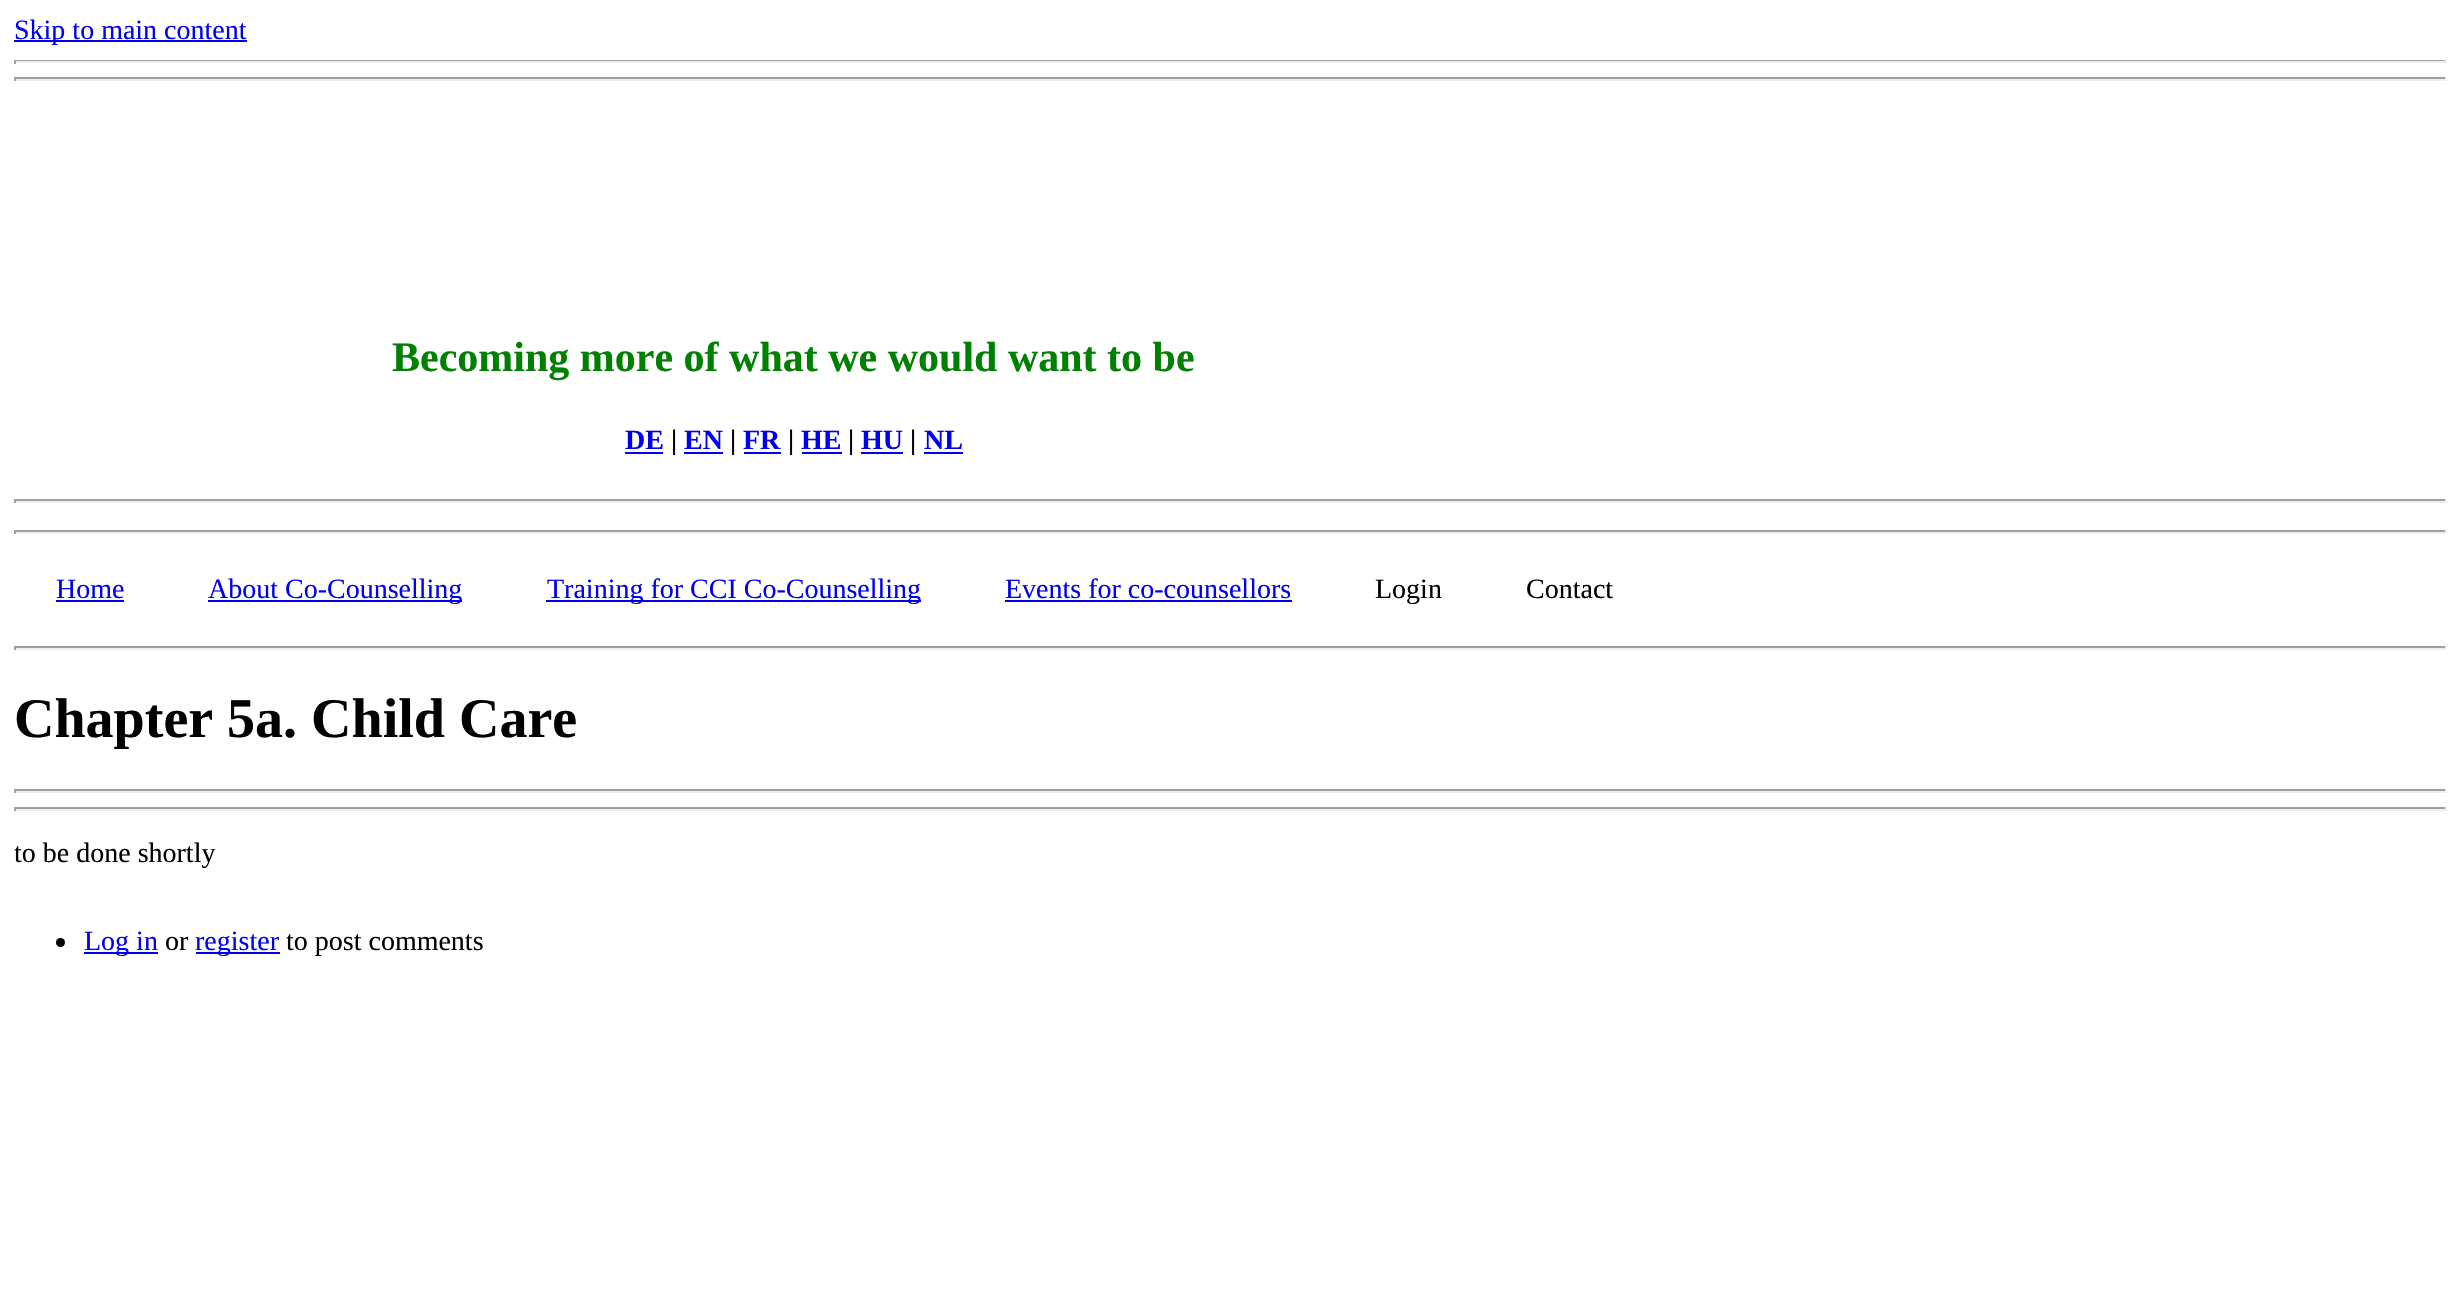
void draw(SkCanvas* canvas) {
    SkPaint paint;
    paint.setAntiAlias(true);
    canvas->clear(0xFFFFFFFF);
    paint.setColor(0xFF0000EE);
    canvas->drawRect(SkRect::MakeXYWH(14, 40, 233, 2), paint);
    SkFont font1(fontMgr->matchFamilyStyle("Liberation Serif", SkFontStyle::Normal()), 28);
    font1.setSubpixel(true);
    canvas->drawString("Skip to main content", 14, 39, font1, paint);
    paint.setColor(0xFF9F9F9F);
    canvas->drawRect(SkRect::MakeXYWH(14, 60, 2433, 1), paint);
    paint.setColor(0xFFEEEEEE);
    canvas->drawRect(SkRect::MakeXYWH(2445, 60, 2, 4), paint);
    canvas->drawRect(SkRect::MakeXYWH(14, 61, 2433, 2), paint);
    paint.setColor(0xFF9F9F9F);
    canvas->drawRect(SkRect::MakeXYWH(14, 60, 2, 4), paint);
    canvas->drawRect(SkRect::MakeXYWH(14, 77, 2433, 2), paint);
    paint.setColor(0xFFEEEEEE);
    canvas->drawRect(SkRect::MakeXYWH(2445, 77, 2, 4), paint);
    canvas->drawRect(SkRect::MakeXYWH(14, 79, 2433, 2), paint);
    paint.setColor(0xFF9F9F9F);
    canvas->drawRect(SkRect::MakeXYWH(14, 77, 2, 4), paint);
    SkFont font2(fontMgr->matchFamilyStyle("Liberation Serif", SkFontStyle::Bold()), 42);
    font2.setSubpixel(true);
    paint.setColor(0xFF008000);
    canvas->drawString("Becoming more of what we would want to be", 392, 371, font2, paint);
    SkFont font3(fontMgr->matchFamilyStyle("Liberation Serif", SkFontStyle::Bold()), 28);
    font3.setSubpixel(true);
    paint.setColor(0xFF0000EE);
    canvas->drawString("DE", 625, 449, font3, paint);
    canvas->drawRect(SkRect::MakeXYWH(625, 452, 38, 2), paint);
    paint.setColor(0xFF000000);
    canvas->drawString("|", 671, 449, font3, paint);
    paint.setColor(0xFF0000EE);
    canvas->drawString("EN", 684, 449, font3, paint);
    canvas->drawRect(SkRect::MakeXYWH(684, 452, 39, 2), paint);
    paint.setColor(0xFF000000);
    canvas->drawString("|", 730, 449, font3, paint);
    paint.setColor(0xFF0000EE);
    canvas->drawString("FR", 743, 449, font3, paint);
    canvas->drawRect(SkRect::MakeXYWH(744, 452, 37, 2), paint);
    paint.setColor(0xFF000000);
    canvas->drawString("|", 788, 449, font3, paint);
    paint.setColor(0xFF0000EE);
    canvas->drawString("HE", 801, 449, font3, paint);
    canvas->drawRect(SkRect::MakeXYWH(802, 452, 40, 2), paint);
    paint.setColor(0xFF000000);
    canvas->drawString("|", 848, 449, font3, paint);
    paint.setColor(0xFF0000EE);
    canvas->drawString("HU", 861, 449, font3, paint);
    canvas->drawRect(SkRect::MakeXYWH(861, 452, 42, 2), paint);
    paint.setColor(0xFF000000);
    canvas->drawString("|", 910, 449, font3, paint);
    paint.setColor(0xFF0000EE);
    canvas->drawString("NL", 924, 449, font3, paint);
    canvas->drawRect(SkRect::MakeXYWH(924, 452, 39, 2), paint);
    paint.setColor(0xFF9F9F9F);
    canvas->drawRect(SkRect::MakeXYWH(14, 499, 2433, 2), paint);
    paint.setColor(0xFFEEEEEE);
    canvas->drawRect(SkRect::MakeXYWH(2445, 499, 2, 4), paint);
    canvas->drawRect(SkRect::MakeXYWH(14, 501, 2433, 2), paint);
    paint.setColor(0xFF9F9F9F);
    canvas->drawRect(SkRect::MakeXYWH(14, 499, 2, 4), paint);
    canvas->drawRect(SkRect::MakeXYWH(14, 530, 2433, 2), paint);
    paint.setColor(0xFFEEEEEE);
    canvas->drawRect(SkRect::MakeXYWH(2445, 530, 2, 4), paint);
    canvas->drawRect(SkRect::MakeXYWH(14, 532, 2433, 2), paint);
    paint.setColor(0xFF9F9F9F);
    canvas->drawRect(SkRect::MakeXYWH(14, 530, 2, 4), paint);
    paint.setColor(0xFF0000EE);
    canvas->drawString("Home", 56, 598, font1, paint);
    canvas->drawRect(SkRect::MakeXYWH(56, 600, 68, 2), paint);
    canvas->drawRect(SkRect::MakeXYWH(208, 600, 254, 2), paint);
    canvas->drawString("About Co-Counselling", 208, 598, font1, paint);
    canvas->drawRect(SkRect::MakeXYWH(546, 600, 375, 2), paint);
    canvas->drawString("Training for CCI Co-Counselling", 547, 598, font1, paint);
    canvas->drawString("Events for co-counsellors", 1005, 598, font1, paint);
    canvas->drawRect(SkRect::MakeXYWH(1005, 600, 287, 2), paint);
    paint.setColor(0xFF000000);
    canvas->drawString("Login", 1375, 598, font1, paint);
    canvas->drawString("Contact", 1526, 598, font1, paint);
    paint.setColor(0xFF9F9F9F);
    canvas->drawRect(SkRect::MakeXYWH(14, 646, 2433, 2), paint);
    paint.setColor(0xFFEEEEEE);
    canvas->drawRect(SkRect::MakeXYWH(2445, 646, 2, 4), paint);
    canvas->drawRect(SkRect::MakeXYWH(14, 648, 2433, 2), paint);
    paint.setColor(0xFF9F9F9F);
    canvas->drawRect(SkRect::MakeXYWH(14, 646, 2, 4), paint);
    SkFont font4(fontMgr->matchFamilyStyle("Liberation Serif", SkFontStyle::Bold()), 56);
    font4.setSubpixel(true);
    paint.setColor(0xFF000000);
    canvas->drawString("Chapter 5a. Child Care", 14, 737, font4, paint);
    paint.setColor(0xFF9F9F9F);
    canvas->drawRect(SkRect::MakeXYWH(14, 789, 2433, 2), paint);
    paint.setColor(0xFFEEEEEE);
    canvas->drawRect(SkRect::MakeXYWH(2445, 789, 2, 4), paint);
    canvas->drawRect(SkRect::MakeXYWH(14, 791, 2433, 2), paint);
    paint.setColor(0xFF9F9F9F);
    canvas->drawRect(SkRect::MakeXYWH(14, 789, 2, 4), paint);
    canvas->drawRect(SkRect::MakeXYWH(14, 807, 2433, 2), paint);
    paint.setColor(0xFFEEEEEE);
    canvas->drawRect(SkRect::MakeXYWH(2445, 807, 2, 4), paint);
    canvas->drawRect(SkRect::MakeXYWH(14, 809, 2433, 2), paint);
    paint.setColor(0xFF9F9F9F);
    canvas->drawRect(SkRect::MakeXYWH(14, 807, 2, 4), paint);
    paint.setColor(0xFF000000);
    canvas->drawString("to be done shortly", 14, 862, font1, paint);
    canvas->drawCircle(60.5f, 942.5f, 4.5f, paint);
    paint.setColor(0xFF0000EE);
    canvas->drawRect(SkRect::MakeXYWH(84, 952, 74, 2), paint);
    canvas->drawString("Log in", 84, 950, font1, paint);
    paint.setColor(0xFF000000);
    canvas->drawString("or", 165, 950, font1, paint);
    paint.setColor(0xFF0000EE);
    canvas->drawRect(SkRect::MakeXYWH(196, 952, 84, 2), paint);
    canvas->drawString("register", 195, 950, font1, paint);
    paint.setColor(0xFF000000);
    canvas->drawString("to post comments", 286, 950, font1, paint);
}
